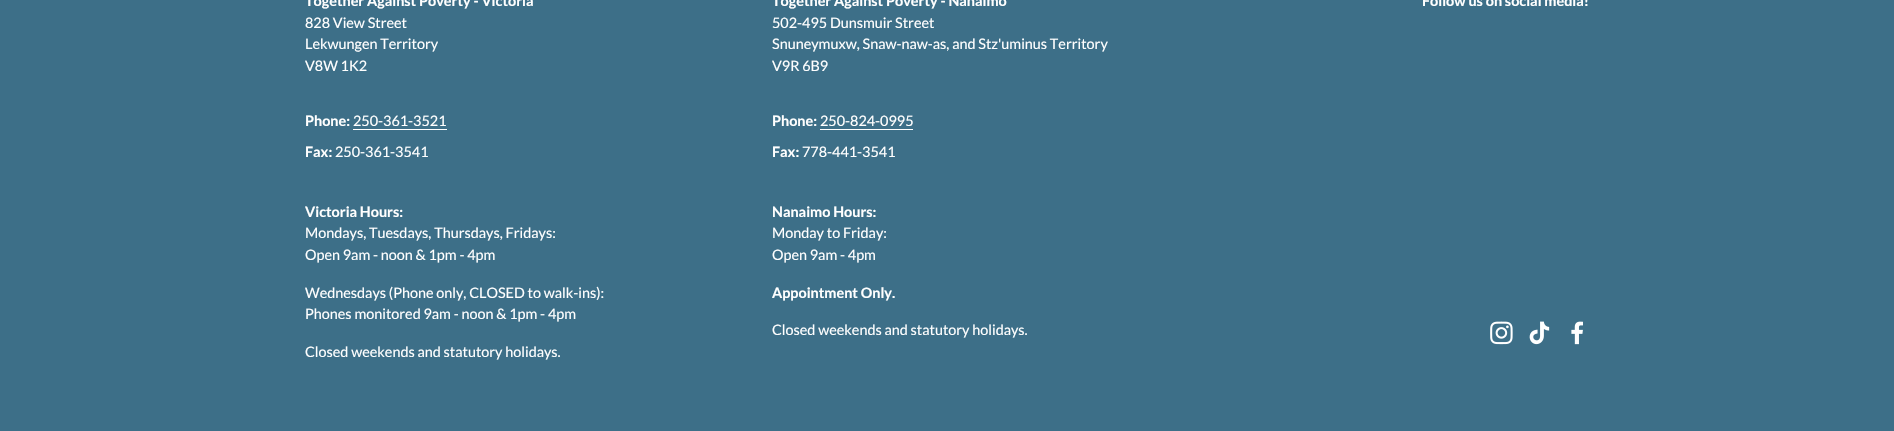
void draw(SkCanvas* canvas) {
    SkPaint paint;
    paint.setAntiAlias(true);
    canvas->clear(0xFF3D6F88);
    SkFont font1(fontMgr->matchFamilyStyle("Lato", SkFontStyle::Bold()), 14.4f);
    font1.setSubpixel(true);
    paint.setColor(0xFFFFFFFF);
    canvas->drawString("Together Against Poverty - Victoria", 305, 6, font1, paint);
    SkFont font2(fontMgr->matchFamilyStyle("Lato", SkFontStyle::Normal()), 14.4f);
    font2.setSubpixel(true);
    canvas->drawString("828 View Street", 305, 28, font2, paint);
    canvas->drawString("Lekwungen Territory", 305, 49, font2, paint);
    canvas->drawString("V8W 1K2", 305, 71, font2, paint);
    canvas->drawString("Together Against Poverty - Nanaimo", 772, 6, font1, paint);
    canvas->drawString("502-495 Dunsmuir Street", 772, 28, font2, paint);
    canvas->drawString("Snuneymuxw, Snaw-naw-as, and Stz'uminus Territory", 772, 49, font2, paint);
    canvas->drawString("V9R 6B9", 772, 71, font2, paint);
    canvas->drawString("Follow us on social media!", 1422, 6, font1, paint);
    canvas->drawString("Phone:", 305, 126, font1, paint);
    canvas->drawString("250-361-3521", 353, 126, font2, paint);
    canvas->drawRect(SkRect::MakeXYWH(353, 129, 94, 1), paint);
    canvas->drawString("Phone:", 772, 126, font1, paint);
    canvas->drawString("250-824-0995", 820, 126, font2, paint);
    canvas->drawRect(SkRect::MakeXYWH(820, 129, 93, 1), paint);
    canvas->drawString("Fax:", 305, 157, font1, paint);
    canvas->drawString("250-361-3541", 335, 157, font2, paint);
    canvas->drawString("Fax:", 772, 157, font1, paint);
    canvas->drawString("778-441-3541", 802, 157, font2, paint);
    canvas->drawString("Victoria Hours:", 305, 217, font1, paint);
    canvas->drawString("Mondays, Tuesdays, Thursdays, Fridays:", 305, 238, font2, paint);
    canvas->drawString("Open 9am - noon & 1pm - 4pm", 305, 260, font2, paint);
    canvas->drawString("Wednesdays (Phone only, CLOSED to walk-ins):", 305, 298, font2, paint);
    canvas->drawString("Phones monitored 9am - noon & 1pm - 4pm", 305, 319, font2, paint);
    canvas->drawString("Closed weekends and statutory holidays.", 305, 357, font2, paint);
    canvas->drawString("Nanaimo Hours:", 772, 217, font1, paint);
    canvas->drawString("Monday to Friday:", 772, 238, font2, paint);
    canvas->drawString("Open 9am - 4pm", 772, 260, font2, paint);
    canvas->drawString("Appointment Only.", 772, 298, font1, paint);
    canvas->drawString("Closed weekends and statutory holidays.", 772, 335, font2, paint);
    canvas->drawImageRect(SkImages::DeferredFromEncodedData(SkData::MakeFromFileName("img1.png")), SkRect::MakeXYWH(1490, 321, 23, 24), SkSamplingOptions());
    canvas->drawImageRect(SkImages::DeferredFromEncodedData(SkData::MakeFromFileName("img2.png")), SkRect::MakeXYWH(1529, 321, 21, 24), SkSamplingOptions());
    canvas->drawImageRect(SkImages::DeferredFromEncodedData(SkData::MakeFromFileName("img3.png")), SkRect::MakeXYWH(1571, 321, 12, 24), SkSamplingOptions());
}
